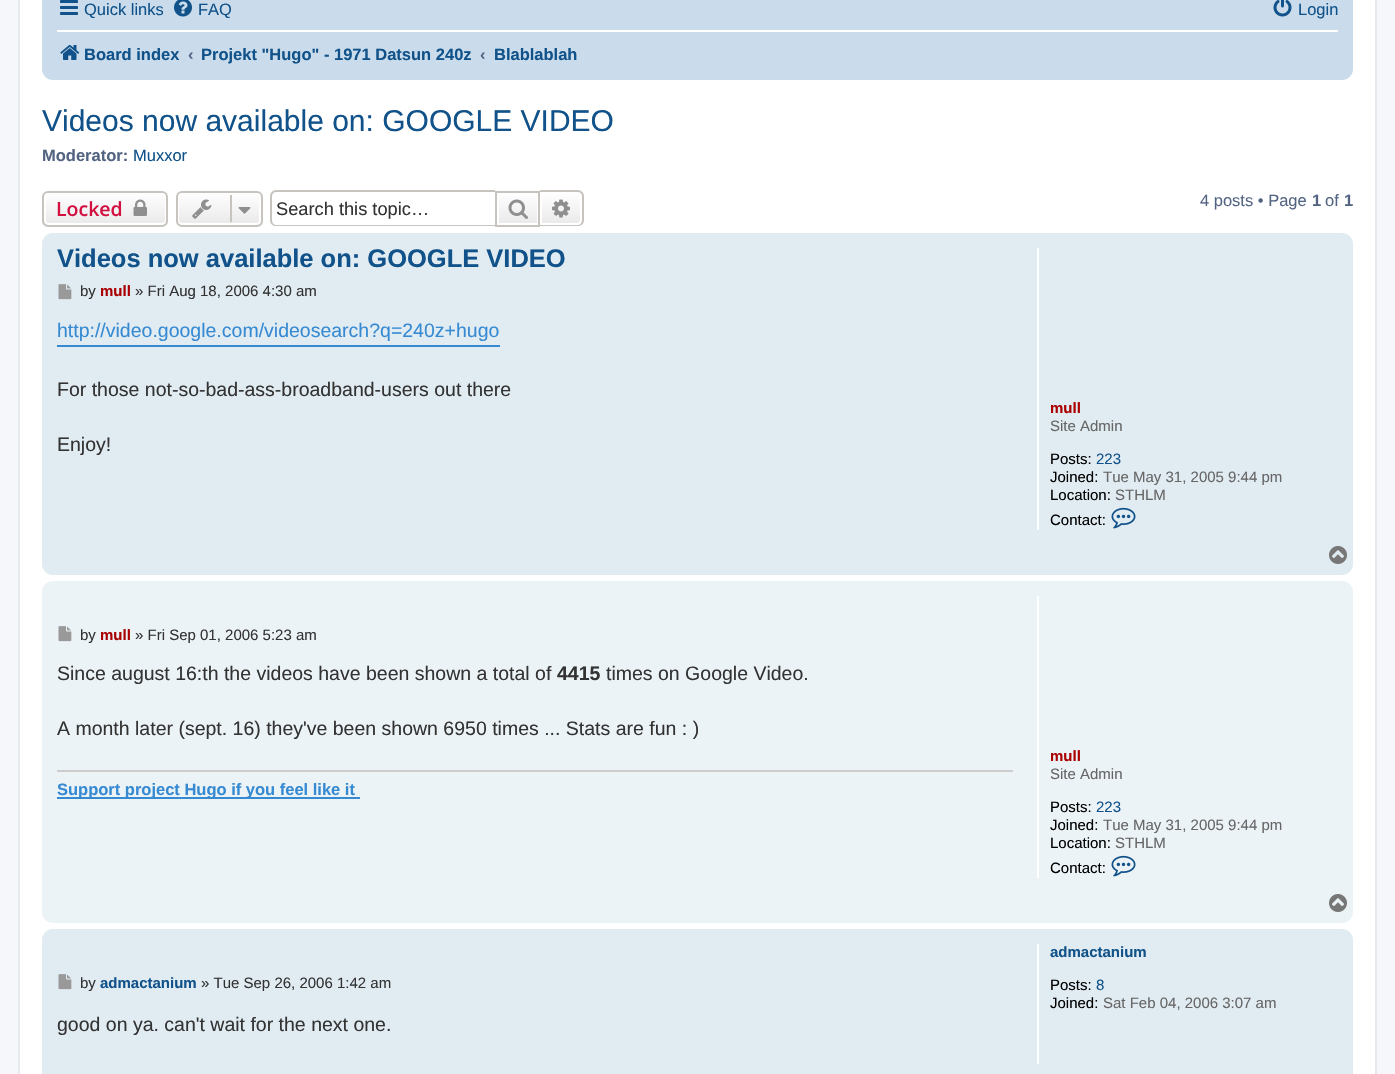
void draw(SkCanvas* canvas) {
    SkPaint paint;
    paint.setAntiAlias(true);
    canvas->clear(0xFFF5F7FA);
    paint.setColor(0xFFFFFFFF);
    canvas->drawRect(SkRect::MakeXYWH(19, -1, 1357, 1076), paint);
    paint.setStyle(SkPaint::kStroke_Style);
    paint.setStrokeWidth(2);
    paint.setColor(0xFFE6E9ED);
    canvas->drawRect(SkRect::MakeXYWH(19, -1, 1357, 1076), paint);
    paint.setStyle(SkPaint::kFill_Style);
    paint.setColor(0xFFCADCEB);
    canvas->drawRoundRect(SkRect::MakeXYWH(42, -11, 1311, 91), 11, 11, paint);
    canvas->drawImageRect(SkImages::DeferredFromEncodedData(SkData::MakeFromFileName("img1.png")), SkRect::MakeXYWH(60, 0, 18, 15), SkSamplingOptions());
    SkFont font1(fontMgr->matchFamilyStyle("Liberation Sans", SkFontStyle::Normal()), 16.5f);
    font1.setSubpixel(true);
    paint.setColor(0xFF105289);
    canvas->drawString("Quick links", 84, 15, font1, paint);
    canvas->drawImageRect(SkImages::DeferredFromEncodedData(SkData::MakeFromFileName("img2.png")), SkRect::MakeXYWH(174, 0, 18, 17), SkSamplingOptions());
    canvas->drawString("FAQ", 198, 15, font1, paint);
    canvas->drawImageRect(SkImages::DeferredFromEncodedData(SkData::MakeFromFileName("img3.png")), SkRect::MakeXYWH(1273, 0, 19, 17), SkSamplingOptions());
    canvas->drawString("Login", 1298, 15, font1, paint);
    paint.setColor(0xFFFFFFFF);
    canvas->drawRect(SkRect::MakeXYWH(57, 30, 1281, 2), paint);
    canvas->drawImageRect(SkImages::DeferredFromEncodedData(SkData::MakeFromFileName("img4.png")), SkRect::MakeXYWH(60, 45, 20, 15), SkSamplingOptions());
    SkFont font2(fontMgr->matchFamilyStyle("Liberation Sans", SkFontStyle::Bold()), 16.5f);
    font2.setSubpixel(true);
    paint.setColor(0xFF105289);
    canvas->drawString("Board index", 84, 60, font2, paint);
    paint.setColor(0xFF536482);
    canvas->drawString("‹", 188, 60, font2, paint);
    paint.setColor(0xFF105289);
    canvas->drawString("Projekt \"Hugo\" - 1971 Datsun 240z", 201, 60, font2, paint);
    paint.setColor(0xFF536482);
    canvas->drawString("‹", 480, 60, font2, paint);
    paint.setColor(0xFF105289);
    canvas->drawString("Blablablah", 494, 60, font2, paint);
    SkFont font3(fontMgr->matchFamilyStyle("Liberation Sans", SkFontStyle::Normal()), 30);
    font3.setSubpixel(true);
    canvas->drawString("Videos now available on: GOOGLE VIDEO", 42, 131, font3, paint);
    paint.setColor(0xFF536482);
    canvas->drawString("Moderator:", 42, 161, font2, paint);
    paint.setColor(0xFF105289);
    canvas->drawString("Muxxor", 133, 161, font1, paint);
    canvas->save();
    canvas->clipPath(SkPathBuilder().moveTo(48, 191).lineTo(162, 191).cubicTo(165.5f, 191, 168, 193.5f, 168, 197).lineTo(168, 221).cubicTo(168, 224.5f, 165.5f, 227, 162, 227).lineTo(48, 227).cubicTo(44.5f, 227, 42, 224.5f, 42, 221).lineTo(42, 197).cubicTo(42, 193.5f, 44.5f, 191, 48, 191).close().detach(), true);
    {
        const SkColor colors[] = {0xFFFFFFFF, 0xFFE9E9E9};
        const float stops[] = {0, 1};
        const SkPoint ends[] = {{105, 192}, {105, 225}};
        paint.setShader(SkGradientShader::MakeLinear(ends, colors, stops, 2, SkTileMode::kClamp));
        paint.setAlpha(255);
    }
    canvas->drawRect(SkRect::MakeXYWH(42, 192, 126, 33), paint);
    canvas->restore();
    paint.setStyle(SkPaint::kStroke_Style);
    paint.setShader(nullptr);
    paint.setColor(0xFFFFFFFF);
    canvas->drawRoundRect(SkRect::MakeXYWH(45, 193, 121, 31), 4, 4, paint);
    paint.setColor(0xFFC7C3BF);
    canvas->drawRoundRect(SkRect::MakeXYWH(43, 192, 124, 34), 5, 5, paint);
    SkFont font4(fontMgr->matchFamilyStyle("Open Sans", SkFontStyle(600, SkFontStyle::kNormal_Width, SkFontStyle::kUpright_Slant)), 19.5f);
    font4.setSubpixel(true);
    paint.setStyle(SkPaint::kFill_Style);
    paint.setColor(0xFFD31141);
    canvas->drawString("Locked", 56, 216, font4, paint);
    canvas->drawImageRect(SkImages::DeferredFromEncodedData(SkData::MakeFromFileName("img5.png")), SkRect::MakeXYWH(133, 199, 14, 17), SkSamplingOptions());
    canvas->save();
    canvas->clipPath(SkPathBuilder().moveTo(182, 191).lineTo(257, 191).cubicTo(260.5f, 191, 263, 193.5f, 263, 197).lineTo(263, 221).cubicTo(263, 224.5f, 260.5f, 227, 257, 227).lineTo(182, 227).cubicTo(178.5f, 227, 176, 224.5f, 176, 221).lineTo(176, 197).cubicTo(176, 193.5f, 178.5f, 191, 182, 191).close().detach(), true);
    {
        const SkColor colors[] = {0xFFFFFFFF, 0xFFE9E9E9};
        const float stops[] = {0, 1};
        const SkPoint ends[] = {{219, 192}, {219, 225}};
        paint.setShader(SkGradientShader::MakeLinear(ends, colors, stops, 2, SkTileMode::kClamp));
        paint.setAlpha(255);
    }
    canvas->drawRect(SkRect::MakeXYWH(176, 192, 87, 33), paint);
    canvas->restore();
    paint.setStyle(SkPaint::kStroke_Style);
    paint.setShader(nullptr);
    paint.setColor(0xFFFFFFFF);
    canvas->drawRoundRect(SkRect::MakeXYWH(178, 193, 82, 31), 4, 4, paint);
    paint.setColor(0xFFC7C3BF);
    canvas->drawRoundRect(SkRect::MakeXYWH(177, 192, 85, 34), 5, 5, paint);
    canvas->drawImageRect(SkImages::DeferredFromEncodedData(SkData::MakeFromFileName("img6.png")), SkRect::MakeXYWH(192, 199, 20, 20), SkSamplingOptions());
    paint.setStyle(SkPaint::kFill_Style);
    canvas->drawRect(SkRect::MakeXYWH(230, 195, 2, 27), paint);
    canvas->drawImageRect(SkImages::DeferredFromEncodedData(SkData::MakeFromFileName("img7.png")), SkRect::MakeXYWH(238, 207, 13, 7), SkSamplingOptions());
    canvas->drawPath(SkPathBuilder(SkPathFillType::kEvenOdd).moveTo(276, 190).lineTo(495, 190).lineTo(495, 226).lineTo(276, 226).cubicTo(273, 226, 270, 224, 270, 220).lineTo(270, 196).cubicTo(270, 193, 273, 190, 276, 190).close().moveTo(276, 192).lineTo(495, 192).lineTo(495, 225).lineTo(276, 225).cubicTo(274, 225, 272, 223, 272, 220).lineTo(272, 196).cubicTo(272, 194, 274, 192, 276, 192).close().detach(), paint);
    SkFont font5(fontMgr->matchFamilyStyle("Liberation Sans", SkFontStyle::Normal()), 18.25f);
    font5.setSubpixel(true);
    paint.setColor(0xFF333333);
    canvas->drawString("Search this topic…", 276, 215, font5, paint);
    {
        const SkColor colors[] = {0xFFFFFFFF, 0xFFE9E9E9};
        const float stops[] = {0, 1};
        const SkPoint ends[] = {{518, 192}, {518, 225}};
        paint.setShader(SkGradientShader::MakeLinear(ends, colors, stops, 2, SkTileMode::kClamp));
        paint.setAlpha(255);
    }
    canvas->drawRect(SkRect::MakeXYWH(499, 196, 38, 27), paint);
    paint.setStyle(SkPaint::kStroke_Style);
    paint.setShader(nullptr);
    paint.setColor(0xFFC7C3BF);
    canvas->drawRect(SkRect::MakeXYWH(496, 192, 43, 34), paint);
    canvas->drawImageRect(SkImages::DeferredFromEncodedData(SkData::MakeFromFileName("img8.png")), SkRect::MakeXYWH(508, 199, 20, 20), SkSamplingOptions());
    paint.setStyle(SkPaint::kFill_Style);
    {
        const SkColor colors[] = {0xFFFFFFFF, 0xFFE9E9E9};
        const float stops[] = {0, 1};
        const SkPoint ends[] = {{561, 192}, {561, 225}};
        paint.setShader(SkGradientShader::MakeLinear(ends, colors, stops, 2, SkTileMode::kClamp));
        paint.setAlpha(255);
    }
    canvas->drawPath(SkPathBuilder().moveTo(541, 193).lineTo(577, 193).cubicTo(579, 193, 581, 195, 581, 197).lineTo(581, 220).cubicTo(581, 222, 579, 224, 577, 224).lineTo(541, 224).close().detach(), paint);
    paint.setStyle(SkPaint::kStroke_Style);
    paint.setShader(nullptr);
    paint.setColor(0xFFFFFFFF);
    canvas->drawPath(SkPathBuilder().moveTo(541, 193).lineTo(577, 193).cubicTo(579, 193, 581, 195, 581, 197).lineTo(581, 220).cubicTo(581, 222, 579, 224, 577, 224).lineTo(541, 224).close().detach(), paint);
    paint.setStyle(SkPaint::kFill_Style);
    paint.setColor(0xFFC7C3BF);
    canvas->drawPath(SkPathBuilder(SkPathFillType::kEvenOdd).moveTo(540, 190).lineTo(578, 190).cubicTo(581, 190, 584, 193, 584, 196).lineTo(584, 220).cubicTo(584, 224, 581, 226, 578, 226).lineTo(540, 226).close().moveTo(540, 192).lineTo(578, 192).cubicTo(580, 192, 582, 194, 582, 196).lineTo(582, 220).cubicTo(582, 223, 580, 225, 578, 225).lineTo(540, 225).close().detach(), paint);
    canvas->drawImageRect(SkImages::DeferredFromEncodedData(SkData::MakeFromFileName("img9.png")), SkRect::MakeXYWH(552, 199, 18, 19), SkSamplingOptions());
    paint.setColor(0xFF536482);
    canvas->drawString("4 posts • Page", 1200, 206, font1, paint);
    canvas->drawString("1", 1312, 206, font2, paint);
    canvas->drawString("of", 1325, 206, font1, paint);
    canvas->drawString("1", 1344, 206, font2, paint);
    paint.setColor(0xFFE1EBF2);
    canvas->drawRoundRect(SkRect::MakeXYWH(42, 233, 1311, 342), 11, 11, paint);
    SkFont font6(fontMgr->matchFamilyStyle("Liberation Sans", SkFontStyle::Bold()), 25.5f);
    font6.setSubpixel(true);
    paint.setColor(0xFF105289);
    canvas->drawString("Videos now available on: GOOGLE VIDEO", 57, 267, font6, paint);
    canvas->drawImageRect(SkImages::DeferredFromEncodedData(SkData::MakeFromFileName("img10.png")), SkRect::MakeXYWH(58, 284, 14, 16), SkSamplingOptions());
    SkFont font7(fontMgr->matchFamilyStyle("Liberation Sans", SkFontStyle::Normal()), 15);
    font7.setSubpixel(true);
    paint.setColor(0xFF333333);
    canvas->drawString("by", 80, 296, font7, paint);
    SkFont font8(fontMgr->matchFamilyStyle("Liberation Sans", SkFontStyle::Bold()), 15);
    font8.setSubpixel(true);
    paint.setColor(0xFFAA0000);
    canvas->drawString("mull", 100, 296, font8, paint);
    paint.setColor(0xFF333333);
    canvas->drawString("» Fri Aug 18, 2006 4:30 am", 135, 296, font7, paint);
    paint.setColor(0xFF368AD2);
    canvas->drawRect(SkRect::MakeXYWH(57, 345, 443, 2), paint);
    SkFont font9(fontMgr->matchFamilyStyle("Liberation Sans", SkFontStyle::Normal()), 19.5f);
    font9.setSubpixel(true);
    canvas->drawString("http://video.google.com/videosearch?q=240z+hugo", 57, 337, font9, paint);
    paint.setColor(0xFF333333);
    canvas->drawString("For those not-so-bad-ass-broadband-users out there", 57, 396, font9, paint);
    canvas->drawString("Enjoy!", 57, 451, font9, paint);
    paint.setColor(0xFFFFFFFF);
    canvas->drawRect(SkRect::MakeXYWH(1037, 248, 2, 282), paint);
    paint.setColor(0xFFAA0000);
    canvas->drawString("mull", 1050, 413, font8, paint);
    paint.setColor(0xFF666666);
    canvas->drawString("Site Admin", 1050, 431, font7, paint);
    paint.setColor(0xFF000000);
    canvas->drawString("Posts:", 1050, 464, font7, paint);
    paint.setColor(0xFF105289);
    canvas->drawString("223", 1096, 464, font7, paint);
    paint.setColor(0xFF000000);
    canvas->drawString("Joined:", 1050, 482, font7, paint);
    paint.setColor(0xFF666666);
    canvas->drawString("Tue May 31, 2005 9:44 pm", 1103, 482, font7, paint);
    paint.setColor(0xFF000000);
    canvas->drawString("Location:", 1050, 500, font7, paint);
    paint.setColor(0xFF666666);
    canvas->drawString("STHLM", 1115, 500, font7, paint);
    paint.setColor(0xFF000000);
    canvas->drawString("Contact:", 1050, 525, font7, paint);
    canvas->drawImageRect(SkImages::DeferredFromEncodedData(SkData::MakeFromFileName("img11.png")), SkRect::MakeXYWH(1111, 507, 25, 22), SkSamplingOptions());
    canvas->drawImageRect(SkImages::DeferredFromEncodedData(SkData::MakeFromFileName("img12.png")), SkRect::MakeXYWH(1329, 546, 18, 18), SkSamplingOptions());
    paint.setColor(0xFFECF3F7);
    canvas->drawRoundRect(SkRect::MakeXYWH(42, 581, 1311, 342), 11, 11, paint);
    canvas->drawImageRect(SkImages::DeferredFromEncodedData(SkData::MakeFromFileName("img13.png")), SkRect::MakeXYWH(58, 626, 14, 16), SkSamplingOptions());
    paint.setColor(0xFF333333);
    canvas->drawString("by", 80, 640, font7, paint);
    paint.setColor(0xFFAA0000);
    canvas->drawString("mull", 100, 640, font8, paint);
    paint.setColor(0xFF333333);
    canvas->drawString("» Fri Sep 01, 2006 5:23 am", 135, 640, font7, paint);
    canvas->drawString("Since august 16:th the videos have been shown a total of", 57, 680, font9, paint);
    SkFont font10(fontMgr->matchFamilyStyle("Liberation Sans", SkFontStyle::Bold()), 19.5f);
    font10.setSubpixel(true);
    canvas->drawString("4415", 557, 680, font10, paint);
    canvas->drawString("times on Google Video.", 606, 680, font9, paint);
    canvas->drawString("A month later (sept. 16) they've been shown 6950 times ... Stats are fun : )", 57, 735, font9, paint);
    paint.setColor(0xFFCCCCCC);
    canvas->drawRect(SkRect::MakeXYWH(57, 770, 956, 2), paint);
    paint.setColor(0xFF368AD2);
    canvas->drawRect(SkRect::MakeXYWH(57, 797, 303, 2), paint);
    canvas->drawString("Support project Hugo if you feel like it", 57, 795, font2, paint);
    paint.setColor(0xFFFFFFFF);
    canvas->drawRect(SkRect::MakeXYWH(1037, 596, 2, 282), paint);
    paint.setColor(0xFFAA0000);
    canvas->drawString("mull", 1050, 761, font8, paint);
    paint.setColor(0xFF666666);
    canvas->drawString("Site Admin", 1050, 779, font7, paint);
    paint.setColor(0xFF000000);
    canvas->drawString("Posts:", 1050, 812, font7, paint);
    paint.setColor(0xFF105289);
    canvas->drawString("223", 1096, 812, font7, paint);
    paint.setColor(0xFF000000);
    canvas->drawString("Joined:", 1050, 830, font7, paint);
    paint.setColor(0xFF666666);
    canvas->drawString("Tue May 31, 2005 9:44 pm", 1103, 830, font7, paint);
    paint.setColor(0xFF000000);
    canvas->drawString("Location:", 1050, 848, font7, paint);
    paint.setColor(0xFF666666);
    canvas->drawString("STHLM", 1115, 848, font7, paint);
    paint.setColor(0xFF000000);
    canvas->drawString("Contact:", 1050, 873, font7, paint);
    canvas->drawImageRect(SkImages::DeferredFromEncodedData(SkData::MakeFromFileName("img14.png")), SkRect::MakeXYWH(1111, 855, 25, 22), SkSamplingOptions());
    canvas->drawImageRect(SkImages::DeferredFromEncodedData(SkData::MakeFromFileName("img15.png")), SkRect::MakeXYWH(1329, 894, 18, 18), SkSamplingOptions());
    paint.setColor(0xFFE1EBF2);
    canvas->drawRoundRect(SkRect::MakeXYWH(42, 929, 1311, 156), 11, 11, paint);
    canvas->drawImageRect(SkImages::DeferredFromEncodedData(SkData::MakeFromFileName("img10.png")), SkRect::MakeXYWH(58, 974, 14, 16), SkSamplingOptions());
    paint.setColor(0xFF333333);
    canvas->drawString("by", 80, 988, font7, paint);
    paint.setColor(0xFF105289);
    canvas->drawString("admactanium", 100, 988, font8, paint);
    paint.setColor(0xFF333333);
    canvas->drawString("» Tue Sep 26, 2006 1:42 am", 201, 988, font7, paint);
    canvas->drawString("good on ya. can't wait for the next one.", 57, 1031, font9, paint);
    paint.setColor(0xFFFFFFFF);
    canvas->drawRect(SkRect::MakeXYWH(1037, 944, 2, 120), paint);
    paint.setColor(0xFF105289);
    canvas->drawString("admactanium", 1050, 957, font8, paint);
    paint.setColor(0xFF000000);
    canvas->drawString("Posts:", 1050, 990, font7, paint);
    paint.setColor(0xFF105289);
    canvas->drawString("8", 1096, 990, font7, paint);
    paint.setColor(0xFF000000);
    canvas->drawString("Joined:", 1050, 1008, font7, paint);
    paint.setColor(0xFF666666);
    canvas->drawString("Sat Feb 04, 2006 3:07 am", 1103, 1008, font7, paint);
}
